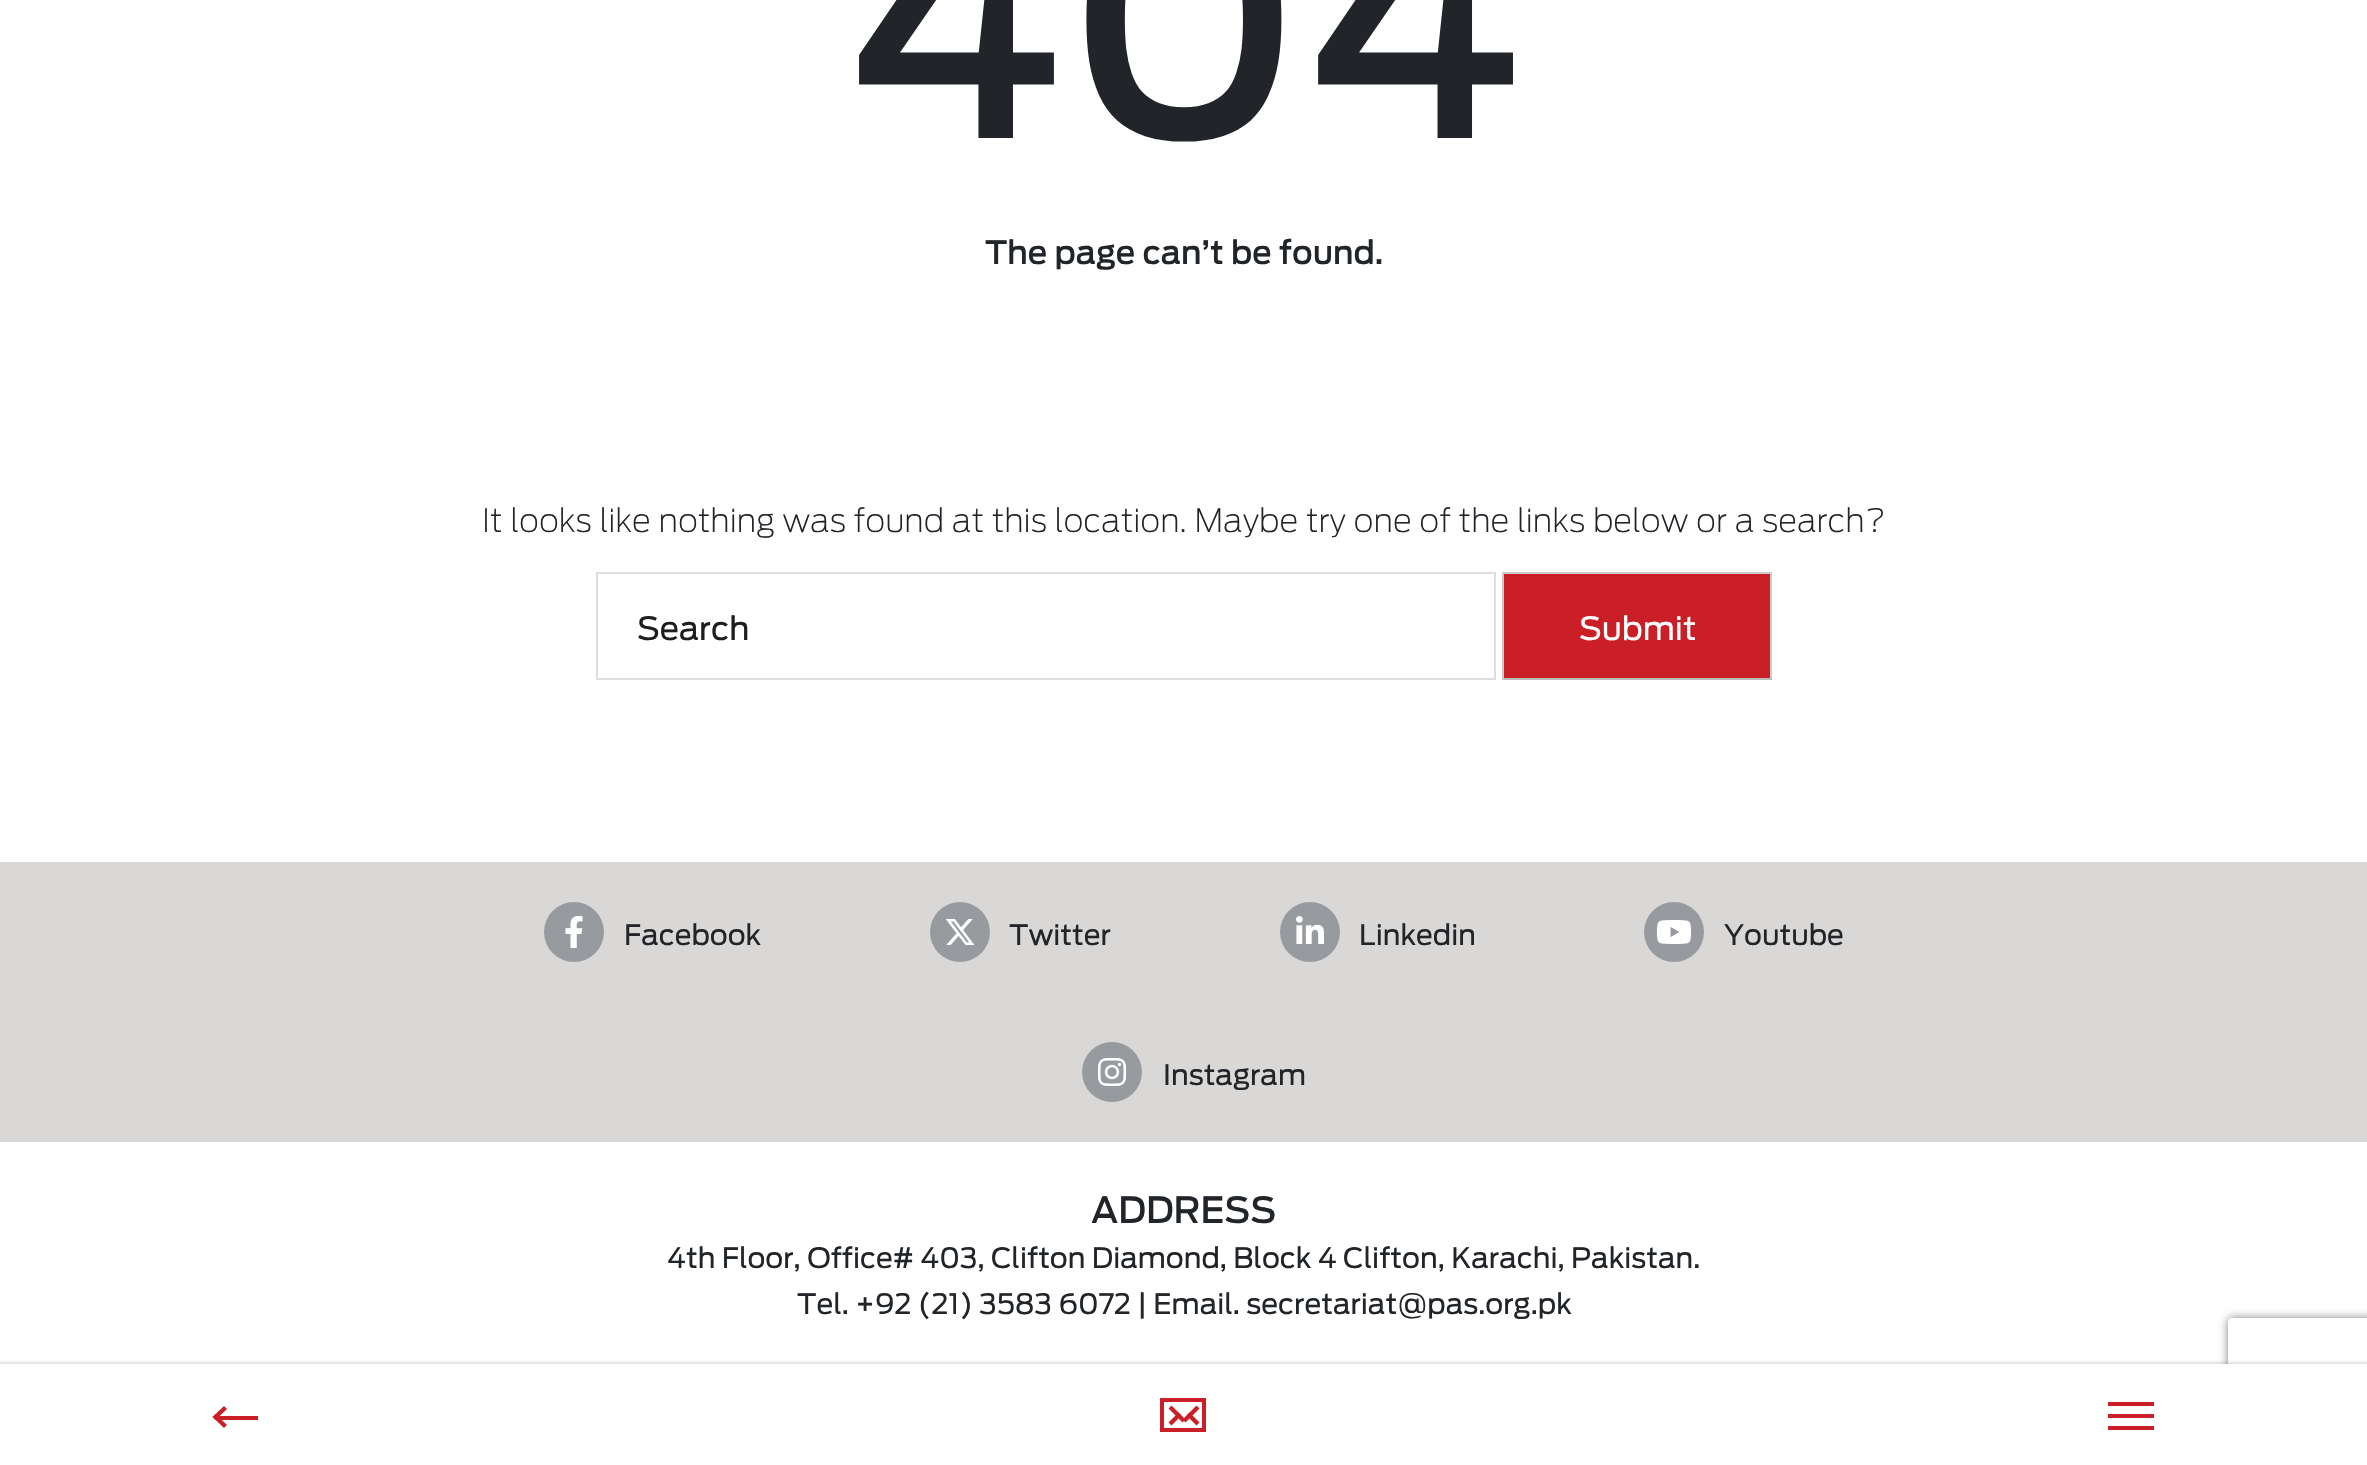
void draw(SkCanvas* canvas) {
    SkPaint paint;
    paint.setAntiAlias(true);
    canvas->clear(0xFFFFFFFF);
    SkFont font1(fontMgr->matchFamilyStyle("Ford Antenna", SkFontStyle(500, SkFontStyle::kNormal_Width, SkFontStyle::kUpright_Slant)), 320);
    font1.setSubpixel(true);
    paint.setColor(0xFF212529);
    canvas->drawString("404", 845, 138, font1, paint);
    SkFont font2(fontMgr->matchFamilyStyle("Ford Antenna", SkFontStyle(500, SkFontStyle::kNormal_Width, SkFontStyle::kUpright_Slant)), 32);
    font2.setSubpixel(true);
    canvas->drawString("The page can’t be found.", 985, 264, font2, paint);
    SkFont font3(fontMgr->matchFamilyStyle("Ford Antenna", SkFontStyle(300, SkFontStyle::kNormal_Width, SkFontStyle::kUpright_Slant)), 32);
    font3.setSubpixel(true);
    canvas->drawString("It looks like nothing was found at this location. Maybe try one of the links below or a search?", 482, 532, font3, paint);
    paint.setStyle(SkPaint::kStroke_Style);
    paint.setStrokeWidth(2);
    paint.setColor(0xFFDEDEDE);
    canvas->drawRect(SkRect::MakeXYWH(597, 573, 898, 106), paint);
    SkFont font4(fontMgr->matchFamilyStyle("Ford Antenna", SkFontStyle::Normal()), 32);
    font4.setSubpixel(true);
    paint.setStyle(SkPaint::kFill_Style);
    paint.setColor(0xFF1D1D1B);
    canvas->drawString("Search", 637, 640, font4, paint);
    paint.setColor(0xFFCB1F27);
    canvas->drawRect(SkRect::MakeXYWH(1504, 574, 266, 104), paint);
    paint.setColor(0xFFCCCCCC);
    canvas->drawRect(SkRect::MakeXYWH(1502, 572, 270, 2), paint);
    canvas->drawRect(SkRect::MakeXYWH(1770, 572, 2, 108), paint);
    paint.setColor(0xFFBBBBBB);
    canvas->drawRect(SkRect::MakeXYWH(1502, 678, 270, 2), paint);
    paint.setColor(0xFFCCCCCC);
    canvas->drawRect(SkRect::MakeXYWH(1502, 572, 2, 108), paint);
    paint.setColor(0xFFFFFFFF);
    canvas->drawString("Submit", 1579, 640, font4, paint);
    paint.setColor(0xFFD9D8D6);
    canvas->drawRect(SkRect::MakeXYWH(0, 862, 2367, 280), paint);
    paint.setColor(0xFF979A9F);
    canvas->drawCircle(574, 932, 30, paint);
    canvas->drawImageRect(SkImages::DeferredFromEncodedData(SkData::MakeFromFileName("img1.png")), SkRect::MakeXYWH(565, 916, 18, 32), SkSamplingOptions());
    SkFont font5(fontMgr->matchFamilyStyle("Ford Antenna", SkFontStyle::Normal()), 28);
    font5.setSubpixel(true);
    paint.setColor(0xFF212529);
    canvas->drawString("Facebook", 624, 945, font5, paint);
    paint.setColor(0xFF979A9F);
    canvas->drawCircle(960, 932, 30, paint);
    canvas->drawImageRect(SkImages::DeferredFromEncodedData(SkData::MakeFromFileName("img2.png")), SkRect::MakeXYWH(945, 919, 30, 26), SkSamplingOptions());
    paint.setColor(0xFF212529);
    canvas->drawString("Twitter", 1009, 945, font5, paint);
    paint.setColor(0xFF979A9F);
    canvas->drawCircle(1310, 932, 30, paint);
    canvas->drawImageRect(SkImages::DeferredFromEncodedData(SkData::MakeFromFileName("img3.png")), SkRect::MakeXYWH(1296, 916, 28, 28), SkSamplingOptions());
    paint.setColor(0xFF212529);
    canvas->drawString("Linkedin", 1359, 945, font5, paint);
    paint.setColor(0xFF979A9F);
    canvas->drawCircle(1674, 932, 30, paint);
    canvas->drawImageRect(SkImages::DeferredFromEncodedData(SkData::MakeFromFileName("img4.png")), SkRect::MakeXYWH(1656, 920, 36, 24), SkSamplingOptions());
    paint.setColor(0xFF212529);
    canvas->drawString("Youtube", 1724, 945, font5, paint);
    paint.setColor(0xFF979A9F);
    canvas->drawCircle(1112, 1072, 30, paint);
    canvas->drawImageRect(SkImages::DeferredFromEncodedData(SkData::MakeFromFileName("img5.png")), SkRect::MakeXYWH(1098, 1058, 28, 28), SkSamplingOptions());
    paint.setColor(0xFF212529);
    canvas->drawString("Instagram", 1163, 1085, font5, paint);
    SkFont font6(fontMgr->matchFamilyStyle("Ford Antenna", SkFontStyle(500, SkFontStyle::kNormal_Width, SkFontStyle::kUpright_Slant)), 36);
    font6.setSubpixel(true);
    canvas->drawString("ADDRESS", 1091, 1223, font6, paint);
    canvas->drawString("4th Floor, Office# 403, Clifton Diamond, Block 4 Clifton, Karachi, Pakistan.", 667, 1268, font5, paint);
    canvas->drawString("Tel. +92 (21) 3583 6072 | Email. secretariat@pas.org.pk", 797, 1314, font5, paint);
    canvas->save();
    canvas->clipPath(SkPathBuilder(SkPathFillType::kEvenOdd).moveTo(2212, 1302).lineTo(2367, 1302).lineTo(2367, 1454).lineTo(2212, 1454).close().moveTo(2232, 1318).lineTo(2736, 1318).cubicTo(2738, 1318, 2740, 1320, 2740, 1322).lineTo(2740, 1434).cubicTo(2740, 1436, 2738, 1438, 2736, 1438).lineTo(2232, 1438).cubicTo(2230, 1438, 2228, 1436, 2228, 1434).lineTo(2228, 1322).cubicTo(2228, 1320, 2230, 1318, 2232, 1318).close().detach(), true);
    paint.setColor(0xFF808080);
    paint.setMaskFilter(SkMaskFilter::MakeBlur(kNormal_SkBlurStyle, 5));
    canvas->drawRoundRect(SkRect::MakeXYWH(2228, 1318, 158, 120), 4, 4, paint);
    paint.setMaskFilter(nullptr);
    canvas->restore();
    paint.setColor(0x1F000000);
    paint.setMaskFilter(SkMaskFilter::MakeBlur(kNormal_SkBlurStyle, 1));
    canvas->drawRect(SkRect::MakeXYWH(-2, 1362, 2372, 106), paint);
    paint.setMaskFilter(nullptr);
    paint.setColor(0xFFFFFFFF);
    canvas->drawRect(SkRect::MakeXYWH(0, 1364, 2367, 101), paint);
    paint.setColor(0xFFCB1F27);
    canvas->drawRect(SkRect::MakeXYWH(216, 1416, 42, 4), paint);
    canvas->drawPath(SkPathBuilder().moveTo(212.5f, 1417).lineTo(224, 1406).lineTo(227, 1409).lineTo(215.5f, 1420).close().detach(), paint);
    canvas->drawPath(SkPathBuilder().moveTo(215.5f, 1414).lineTo(227, 1425).lineTo(224, 1428).lineTo(212.5f, 1417).close().detach(), paint);
    paint.setStyle(SkPaint::kStroke_Style);
    paint.setStrokeWidth(4);
    canvas->drawRect(SkRect::MakeXYWH(1162, 1400, 42, 30), paint);
    paint.setStyle(SkPaint::kFill_Style);
    canvas->drawPath(SkPathBuilder().moveTo(1178.5f, 1412.5f).lineTo(1181.5f, 1415.5f).lineTo(1171.5f, 1425.5f).lineTo(1168.5f, 1422.5f).close().detach(), paint);
    canvas->drawPath(SkPathBuilder().moveTo(1168.5f, 1408.5f).lineTo(1171.5f, 1405.5f).lineTo(1185.5f, 1419.5f).lineTo(1182.5f, 1422.5f).close().detach(), paint);
    canvas->drawPath(SkPathBuilder().moveTo(1196.5f, 1405.5f).lineTo(1199.5f, 1408.5f).lineTo(1185.5f, 1422.5f).lineTo(1182.5f, 1419.5f).close().detach(), paint);
    canvas->drawPath(SkPathBuilder().moveTo(1186.5f, 1415.5f).lineTo(1189.5f, 1412.5f).lineTo(1199.5f, 1422.5f).lineTo(1196.5f, 1425.5f).close().detach(), paint);
    canvas->drawRect(SkRect::MakeXYWH(2108, 1414, 46, 4), paint);
    canvas->drawRect(SkRect::MakeXYWH(2108, 1402, 46, 4), paint);
    canvas->drawRect(SkRect::MakeXYWH(2108, 1426, 46, 4), paint);
}
